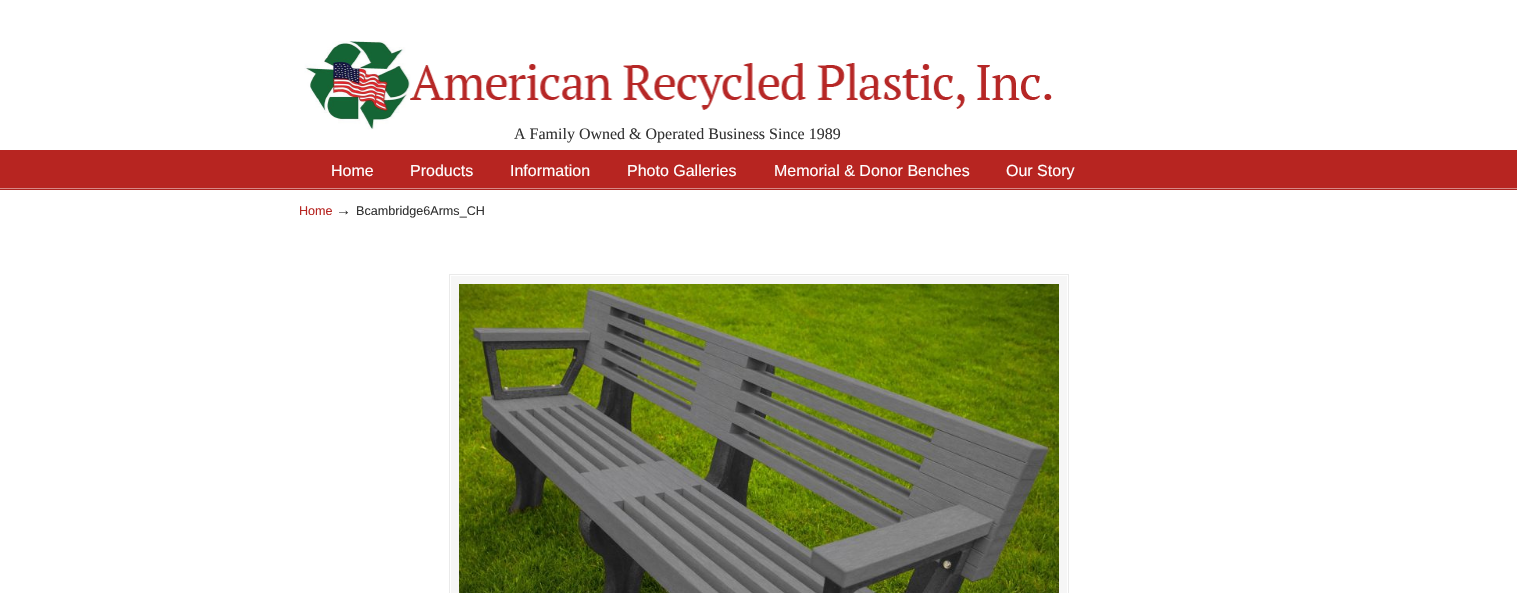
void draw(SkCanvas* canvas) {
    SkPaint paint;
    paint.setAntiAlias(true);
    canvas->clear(0xFFFFFFFF);
    SkFont font1(fontMgr->matchFamilyStyle("Liberation Serif", SkFontStyle::Normal()), 16);
    font1.setSubpixel(true);
    paint.setColor(0xFF333333);
    canvas->drawString("A Family Owned & Operated Business Since 1989", 514, 139, font1, paint);
    canvas->drawImageRect(SkImages::DeferredFromEncodedData(SkData::MakeFromFileName("img1.png")), SkRect::MakeXYWH(304, 41, 748, 89), SkSamplingOptions());
    paint.setColor(0xFFB72521);
    canvas->drawRect(SkRect::MakeXYWH(0, 150, 1517, 40), paint);
    canvas->drawImageRect(SkImages::DeferredFromEncodedData(SkData::MakeFromFileName("img2.png")), SkRect::MakeXYWH(0, 188, 1517, 2), SkSamplingOptions());
    SkFont font2(fontMgr->matchFamilyStyle("Liberation Sans", SkFontStyle::Normal()), 16);
    font2.setSubpixel(true);
    paint.setColor(0xFFFFFFFF);
    canvas->drawString("Home", 331, 176, font2, paint);
    canvas->drawString("Products", 410, 176, font2, paint);
    canvas->drawString("Information", 510, 176, font2, paint);
    canvas->drawString("Photo Galleries", 627, 176, font2, paint);
    canvas->drawString("Memorial & Donor Benches", 774, 176, font2, paint);
    canvas->drawString("Our Story", 1006, 176, font2, paint);
    SkFont font3(fontMgr->matchFamilyStyle("Liberation Sans", SkFontStyle::Normal()), 12.6f);
    font3.setSubpixel(true);
    paint.setColor(0xFFB72521);
    canvas->drawString("Home", 299, 215, font3, paint);
    SkFont font4(fontMgr->matchFamilyStyle("Liberation Sans", SkFontStyle::Normal()), 15);
    font4.setSubpixel(true);
    paint.setColor(0xFF333333);
    canvas->drawString("→", 336, 215, font4, paint);
    canvas->drawString("Bcambridge6Arms_CH", 356, 215, font3, paint);
    paint.setColor(0xFFF6F6F6);
    canvas->drawRect(SkRect::MakeXYWH(451, 276, 616, 317), paint);
    paint.setStyle(SkPaint::kStroke_Style);
    paint.setStrokeWidth(1);
    paint.setColor(0xFFEAEAEA);
    canvas->drawRect(SkRect::MakeXYWH(449.5f, 274.5f, 619, 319), paint);
    canvas->drawImageRect(SkImages::DeferredFromEncodedData(SkData::MakeFromFileName("img3.png")), SkRect::MakeXYWH(459, 284, 600, 309), SkSamplingOptions());
}
